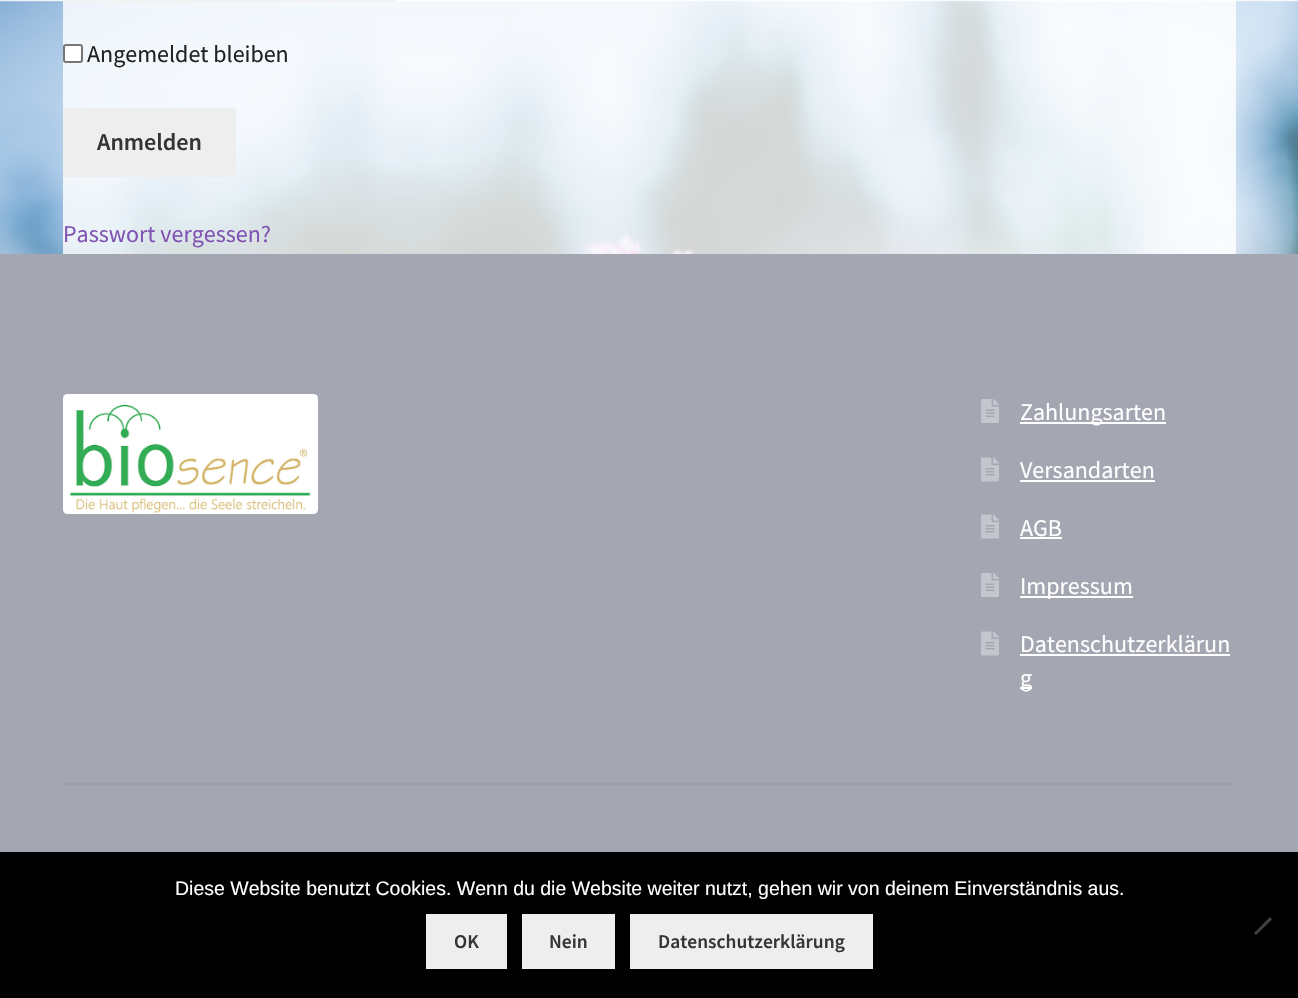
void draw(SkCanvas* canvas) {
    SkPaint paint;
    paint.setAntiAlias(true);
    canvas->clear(0xFFFFFFFF);
    canvas->drawImageRect(SkImages::DeferredFromEncodedData(SkData::MakeFromFileName("img1.png")), SkRect::MakeXYWH(0, 0, 1298, 254), SkSamplingOptions());
    paint.setColor(0xD1FFFFFF);
    canvas->drawRect(SkRect::MakeXYWH(63, 0, 1173, 254), paint);
    paint.setColor(0xFFF2F2F2);
    canvas->drawRect(SkRect::MakeXYWH(63, 0, 332, 2), paint);
    paint.setColor(0xFFFFFFFF);
    canvas->drawRoundRect(SkRect::MakeXYWH(64, 45, 18, 17), 2, 2, paint);
    paint.setStyle(SkPaint::kStroke_Style);
    paint.setStrokeWidth(2);
    paint.setColor(0xFF767676);
    canvas->drawRoundRect(SkRect::MakeXYWH(64, 45, 18, 17), 2, 2, paint);
    SkFont font1(fontMgr->matchFamilyStyle("Source Sans Pro", SkFontStyle::Normal()), 24);
    font1.setSubpixel(true);
    paint.setStyle(SkPaint::kFill_Style);
    paint.setColor(0xFF222222);
    canvas->drawString("Angemeldet bleiben", 87, 62, font1, paint);
    paint.setColor(0xFFEEEEEE);
    canvas->drawRect(SkRect::MakeXYWH(63, 108, 173, 69), paint);
    SkFont font2(fontMgr->matchFamilyStyle("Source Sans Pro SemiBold", SkFontStyle(600, SkFontStyle::kNormal_Width, SkFontStyle::kUpright_Slant)), 24);
    font2.setSubpixel(true);
    paint.setColor(0xFF353535);
    canvas->drawString("Anmelden", 97, 150, font2, paint);
    paint.setColor(0xFF7F54B3);
    canvas->drawString("Passwort vergessen?", 63, 242, font1, paint);
    paint.setColor(0xFFA4A6B2);
    canvas->drawRect(SkRect::MakeXYWH(0, 254, 1298, 598), paint);
    paint.setColor(0xFF9C9EA9);
    canvas->drawRect(SkRect::MakeXYWH(63, 783, 1173, 2), paint);
    canvas->drawImageRect(SkImages::DeferredFromEncodedData(SkData::MakeFromFileName("img2.png")), SkRect::MakeXYWH(63, 394, 255, 120), SkSamplingOptions());
    canvas->drawImageRect(SkImages::DeferredFromEncodedData(SkData::MakeFromFileName("img3.png")), SkRect::MakeXYWH(981, 399, 18, 24), SkSamplingOptions());
    paint.setColor(0xFFFFFFFF);
    canvas->drawRect(SkRect::MakeXYWH(1020, 422, 146, 2), paint);
    canvas->drawString("Zahlungsarten", 1020, 420, font1, paint);
    canvas->drawImageRect(SkImages::DeferredFromEncodedData(SkData::MakeFromFileName("img4.png")), SkRect::MakeXYWH(981, 457, 18, 25), SkSamplingOptions());
    canvas->drawString("Versandarten", 1020, 478, font1, paint);
    canvas->drawRect(SkRect::MakeXYWH(1020, 480, 135, 2), paint);
    canvas->drawImageRect(SkImages::DeferredFromEncodedData(SkData::MakeFromFileName("img4.png")), SkRect::MakeXYWH(981, 514, 18, 25), SkSamplingOptions());
    canvas->drawString("AGB", 1020, 536, font1, paint);
    canvas->drawRect(SkRect::MakeXYWH(1020, 537, 42, 2), paint);
    canvas->drawImageRect(SkImages::DeferredFromEncodedData(SkData::MakeFromFileName("img3.png")), SkRect::MakeXYWH(981, 573, 18, 24), SkSamplingOptions());
    canvas->drawRect(SkRect::MakeXYWH(1020, 596, 113, 2), paint);
    canvas->drawString("Impressum", 1020, 594, font1, paint);
    canvas->drawImageRect(SkImages::DeferredFromEncodedData(SkData::MakeFromFileName("img4.png")), SkRect::MakeXYWH(981, 631, 18, 25), SkSamplingOptions());
    canvas->drawString("Datenschutzerklärun", 1020, 652, font1, paint);
    canvas->drawRect(SkRect::MakeXYWH(1020, 654, 210, 2), paint);
    canvas->drawRect(SkRect::MakeXYWH(1020, 687, 12, 2), paint);
    canvas->drawString("g", 1020, 686, font1, paint);
    paint.setColor(0xFF000000);
    canvas->drawRect(SkRect::MakeXYWH(0, 852, 1298, 146), paint);
    SkFont font3(fontMgr->matchFamilyStyle("Liberation Sans", SkFontStyle::Normal()), 19.5f);
    font3.setSubpixel(true);
    paint.setColor(0xFFFFFFFF);
    canvas->drawString("Diese Website benutzt Cookies. Wenn du die Website weiter nutzt, gehen wir von deinem Einverständnis aus.", 175, 895, font3, paint);
    paint.setColor(0xFF404040);
    canvas->drawPath(SkPathBuilder().moveTo(1270, 917).lineTo(1272, 919.5f).lineTo(1256, 935).lineTo(1254, 933).close().detach(), paint);
    paint.setColor(0xFFEEEEEE);
    canvas->drawRect(SkRect::MakeXYWH(426, 914, 81, 55), paint);
    SkFont font4(fontMgr->matchFamilyStyle("Source Sans Pro SemiBold", SkFontStyle(600, SkFontStyle::kNormal_Width, SkFontStyle::kUpright_Slant)), 19.5f);
    font4.setSubpixel(true);
    paint.setColor(0xFF353535);
    canvas->drawString("OK", 454, 948, font4, paint);
    paint.setColor(0xFFEEEEEE);
    canvas->drawRect(SkRect::MakeXYWH(522, 914, 93, 55), paint);
    paint.setColor(0xFF353535);
    canvas->drawString("Nein", 549, 948, font4, paint);
    paint.setColor(0xFFEEEEEE);
    canvas->drawRect(SkRect::MakeXYWH(630, 914, 243, 55), paint);
    paint.setColor(0xFF353535);
    canvas->drawString("Datenschutzerklärung", 658, 948, font4, paint);
}
